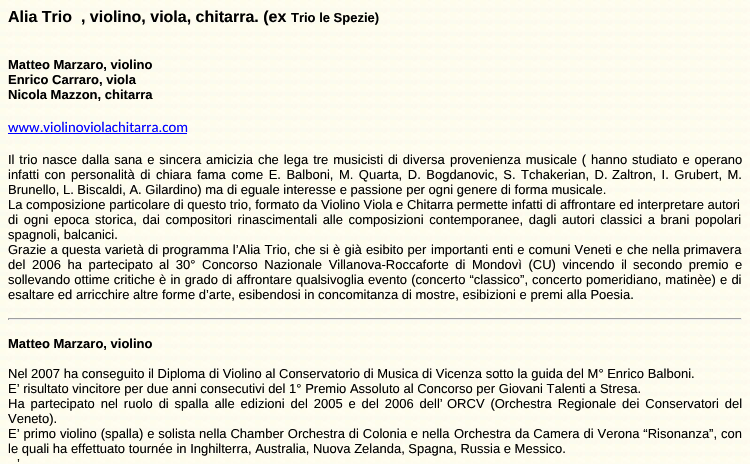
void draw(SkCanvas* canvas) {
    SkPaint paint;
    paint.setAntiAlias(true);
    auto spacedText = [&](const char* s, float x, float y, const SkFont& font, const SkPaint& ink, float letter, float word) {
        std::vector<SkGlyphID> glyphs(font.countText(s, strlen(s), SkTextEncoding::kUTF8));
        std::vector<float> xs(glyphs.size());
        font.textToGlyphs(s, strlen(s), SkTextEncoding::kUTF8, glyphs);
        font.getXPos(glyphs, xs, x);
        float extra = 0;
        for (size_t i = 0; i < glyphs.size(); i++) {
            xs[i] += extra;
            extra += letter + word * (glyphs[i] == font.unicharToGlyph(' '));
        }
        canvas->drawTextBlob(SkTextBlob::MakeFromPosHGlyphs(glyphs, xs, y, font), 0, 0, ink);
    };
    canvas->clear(0xFFFFFFFF);
    canvas->drawImageRect(SkImages::DeferredFromEncodedData(SkData::MakeFromFileName("img1.png")), SkRect::MakeXYWH(0, 0, 750, 464), SkSamplingOptions());
    SkFont font1(fontMgr->matchFamilyStyle("Liberation Sans", SkFontStyle::Bold()), 16);
    font1.setSubpixel(true);
    paint.setColor(0xFF000000);
    canvas->drawString("Alia Trio  , violino, viola, chitarra. (ex", 8, 22, font1, paint);
    SkFont font2(fontMgr->matchFamilyStyle("Liberation Sans", SkFontStyle::Bold()), 13);
    font2.setSubpixel(true);
    canvas->drawString("Trio le Spezie)", 291, 22, font2, paint);
    canvas->drawString("Matteo Marzaro, violino", 8, 69, font2, paint);
    canvas->drawString("Enrico Carraro, viola", 8, 84, font2, paint);
    canvas->drawString("Nicola Mazzon, chitarra", 8, 99, font2, paint);
    SkFont font3(fontMgr->matchFamilyStyle("Carlito", SkFontStyle::Normal()), 14.75f);
    font3.setSubpixel(true);
    paint.setColor(0xFF0000FF);
    canvas->drawString("www.violinoviolachitarra.com", 8, 132, font3, paint);
    canvas->drawRect(SkRect::MakeXYWH(8, 133, 179, 1), paint);
    SkFont font4(fontMgr->matchFamilyStyle("Liberation Sans", SkFontStyle::Normal()), 13);
    font4.setSubpixel(true);
    paint.setColor(0xFF000000);
    spacedText("Il trio nasce dalla sana e sincera amicizia che lega tre musicisti di diversa", 8, 164, font4, paint, 0, 1.25f);
    spacedText("provenienza musicale ( hanno studiato e operano", 450, 164, font4, paint, 0, 1.25f);
    spacedText("infatti con personalità di", 8, 179, font4, paint, 0, 1.9f);
    spacedText("chiara fama come E. Balboni, M. Quarta, D. Bogdanovic, S. Tchakerian, D.", 156, 179, font4, paint, 0, 1.9f);
    spacedText("Zaltron, I. Grubert, M.", 612, 179, font4, paint, 0, 1.9f);
    canvas->drawString("Brunello, L. Biscaldi, A. Gilardino) ma di eguale interesse e passione per ogni genere di forma musicale.", 8, 194, font4, paint);
    canvas->drawString("La composizione particolare di questo trio, formato da Violino Viola e Chitarra permette infatti di affrontare ed interpretare autori", 8, 209, font4, paint);
    spacedText("di ogni epoca", 8, 224, font4, paint, 0, 2);
    spacedText("storica, dai compositori rinascimentali alle composizioni contemporanee, dagli", 95, 224, font4, paint, 0, 2);
    spacedText("autori classici a brani popolari", 562, 224, font4, paint, 0, 2);
    canvas->drawString("spagnoli, balcanici.", 8, 239, font4, paint);
    spacedText("Grazie a questa varietà di programma l’Alia Trio, che si è già esibito per", 8, 254, font4, paint, 0, 0.5f);
    spacedText("importanti enti e comuni Veneti e che nella primavera", 431, 254, font4, paint, 0, 0.5f);
    spacedText("del 2006 ha partecipato", 8, 269, font4, paint, 0, 3);
    spacedText("al 30° Concorso Nazionale Villanova-Roccaforte di Mondovì (CU) vincendo il", 159, 269, font4, paint, 0, 3);
    spacedText("secondo premio e", 633, 269, font4, paint, 0, 3);
    spacedText("sollevando ottime critiche è in grado di affrontare", 8, 284, font4, paint, 0, 0.5f);
    spacedText("qualsivoglia evento (concerto “classico”, concerto pomeridiano, matinèe) e di", 296, 284, font4, paint, 0, 0.5f);
    canvas->drawString("esaltare ed arricchire altre forme d’arte, esibendosi in concomitanza di mostre, esibizioni e premi alla Poesia.", 8, 299, font4, paint);
    paint.setColor(0xFF9F9F9F);
    canvas->drawRect(SkRect::MakeXYWH(8, 318, 734, 1), paint);
    paint.setColor(0xFFEEEEEE);
    canvas->drawRect(SkRect::MakeXYWH(741, 318, 1, 2), paint);
    canvas->drawRect(SkRect::MakeXYWH(8, 319, 734, 1), paint);
    paint.setColor(0xFF9F9F9F);
    canvas->drawRect(SkRect::MakeXYWH(8, 318, 1, 2), paint);
    paint.setColor(0xFF000000);
    canvas->drawString("Matteo Marzaro, violino", 8, 348, font2, paint);
    canvas->drawString("Nel 2007 ha conseguito il Diploma di Violino al Conservatorio di Musica di Vicenza sotto la guida del M° Enrico Balboni.", 8, 378, font4, paint);
    canvas->drawString("E’ risultato vincitore per due anni consecutivi del 1° Premio Assoluto al Concorso per Giovani Talenti a Stresa.", 8, 393, font4, paint);
    spacedText("Ha partecipato nel ruolo di spalla alle edizioni del 2005 e del 2006 dell’", 8, 408, font4, paint, 0, 2.25f);
    spacedText("ORCV (Orchestra Regionale dei Conservatori del", 447, 408, font4, paint, 0, 2.25f);
    canvas->drawString("Veneto).", 8, 423, font4, paint);
    spacedText("E’ primo violino (spalla) e solista nella Chamber Orchestra di Colonia e nella", 8, 438, font4, paint, 0, 0.3f);
    spacedText("Orchestra da Camera di Verona “Risonanza”, con", 454, 438, font4, paint, 0, 0.3f);
    canvas->drawString("le quali ha effettuato tournée in Inghilterra, Australia, Nuova Zelanda, Spagna, Russia e Messico.", 8, 453, font4, paint);
    canvas->drawString("’", 17, 468, font4, paint);
}
